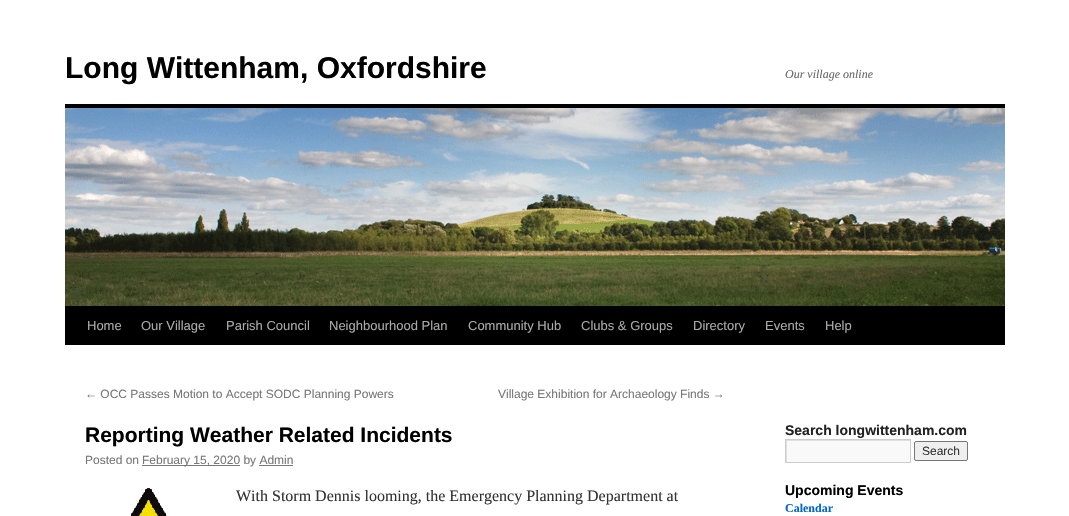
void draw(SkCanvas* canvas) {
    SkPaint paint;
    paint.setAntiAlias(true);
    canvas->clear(0xFFFFFFFF);
    SkFont font1(fontMgr->matchFamilyStyle("Liberation Sans", SkFontStyle::Bold()), 30);
    font1.setSubpixel(true);
    paint.setColor(0xFF000000);
    canvas->drawString("Long Wittenham, Oxfordshire", 65, 78, font1, paint);
    SkFont font2(fontMgr->matchFamilyStyle("Liberation Serif", SkFontStyle::Italic()), 12);
    font2.setSubpixel(true);
    paint.setColor(0xFF666666);
    canvas->drawString("Our village online", 785, 78, font2, paint);
    paint.setColor(0xFF000000);
    canvas->drawRect(SkRect::MakeXYWH(65, 104, 940, 4), paint);
    canvas->drawRect(SkRect::MakeXYWH(65, 306, 940, 39), paint);
    canvas->drawImageRect(SkImages::DeferredFromEncodedData(SkData::MakeFromFileName("img1.png")), SkRect::MakeXYWH(65, 108, 940, 198), SkSamplingOptions());
    SkFont font3(fontMgr->matchFamilyStyle("Liberation Sans", SkFontStyle::Normal()), 13);
    font3.setSubpixel(true);
    paint.setColor(0xFFAAAAAA);
    canvas->drawString("Home", 87, 330, font3, paint);
    canvas->drawString("Our Village", 141, 330, font3, paint);
    canvas->drawString("Parish Council", 226, 330, font3, paint);
    canvas->drawString("Neighbourhood Plan", 329, 330, font3, paint);
    canvas->drawString("Community Hub", 468, 330, font3, paint);
    canvas->drawString("Clubs & Groups", 581, 330, font3, paint);
    canvas->drawString("Directory", 693, 330, font3, paint);
    canvas->drawString("Events", 765, 330, font3, paint);
    canvas->drawString("Help", 825, 330, font3, paint);
    SkFont font4(fontMgr->matchFamilyStyle("Liberation Sans", SkFontStyle::Normal()), 12);
    font4.setSubpixel(true);
    paint.setColor(0xFF777777);
    canvas->drawString("← OCC Passes Motion to Accept SODC Planning Powers", 85, 398, font4, paint);
    canvas->drawString("Village Exhibition for Archaeology Finds →", 498, 398, font4, paint);
    SkFont font5(fontMgr->matchFamilyStyle("Liberation Sans", SkFontStyle::Bold()), 21);
    font5.setSubpixel(true);
    paint.setColor(0xFF000000);
    canvas->drawString("Reporting Weather Related Incidents", 85, 442, font5, paint);
    paint.setColor(0xFF777777);
    canvas->drawString("Posted on", 85, 464, font4, paint);
    canvas->drawRect(SkRect::MakeXYWH(142, 465, 98, 1), paint);
    canvas->drawString("February 15, 2020 by Admin", 142, 464, font4, paint);
    canvas->drawRect(SkRect::MakeXYWH(259, 465, 34, 1), paint);
    canvas->drawImageRect(SkImages::DeferredFromEncodedData(SkData::MakeFromFileName("img2.png")), SkRect::MakeXYWH(130, 488, 37, 28), SkSamplingOptions());
    SkFont font6(fontMgr->matchFamilyStyle("Liberation Serif", SkFontStyle::Normal()), 16);
    font6.setSubpixel(true);
    paint.setColor(0xFF333333);
    canvas->drawString("With Storm Dennis looming, the Emergency Planning Department at", 236, 501, font6, paint);
    SkFont font7(fontMgr->matchFamilyStyle("Liberation Sans", SkFontStyle::Bold()), 14);
    font7.setSubpixel(true);
    paint.setColor(0xFF222222);
    canvas->drawString("Search longwittenham.com", 785, 435, font7, paint);
    paint.setColor(0xFFF9F9F9);
    canvas->drawRect(SkRect::MakeXYWH(787, 441, 123, 21), paint);
    canvas->save();
    canvas->clipRect(SkRect::MakeXYWH(786, 440, 124, 22));
    paint.setColor(0xFFE0E0E0);
    canvas->drawPath(SkPathBuilder(SkPathFillType::kEvenOdd).moveTo(687, 341).lineTo(1009, 341).lineTo(1009, 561).lineTo(687, 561).close().moveTo(787, 441).lineTo(911, 441).lineTo(911, 463).lineTo(787, 463).close().detach(), paint);
    canvas->restore();
    paint.setStyle(SkPaint::kStroke_Style);
    paint.setStrokeWidth(1);
    paint.setColor(0xFFCCCCCC);
    canvas->drawRect(SkRect::MakeXYWH(785.5f, 439.5f, 125, 23), paint);
    paint.setStyle(SkPaint::kFill_Style);
    paint.setColor(0xFFEFEFEF);
    canvas->drawRoundRect(SkRect::MakeXYWH(914.5f, 441.5f, 53, 19), 1.5f, 1.5f, paint);
    paint.setStyle(SkPaint::kStroke_Style);
    paint.setColor(0xFF767676);
    canvas->drawRoundRect(SkRect::MakeXYWH(914.5f, 441.5f, 53, 19), 1.5f, 1.5f, paint);
    paint.setStyle(SkPaint::kFill_Style);
    paint.setColor(0xFF333333);
    canvas->drawString("Search", 922, 455, font4, paint);
    paint.setColor(0xFF000000);
    canvas->drawString("Upcoming Events", 785, 495, font7, paint);
    SkFont font8(fontMgr->matchFamilyStyle("Liberation Serif", SkFontStyle::Bold()), 12);
    font8.setSubpixel(true);
    paint.setColor(0xFF0066CC);
    canvas->drawString("Calendar", 785, 512, font8, paint);
}
